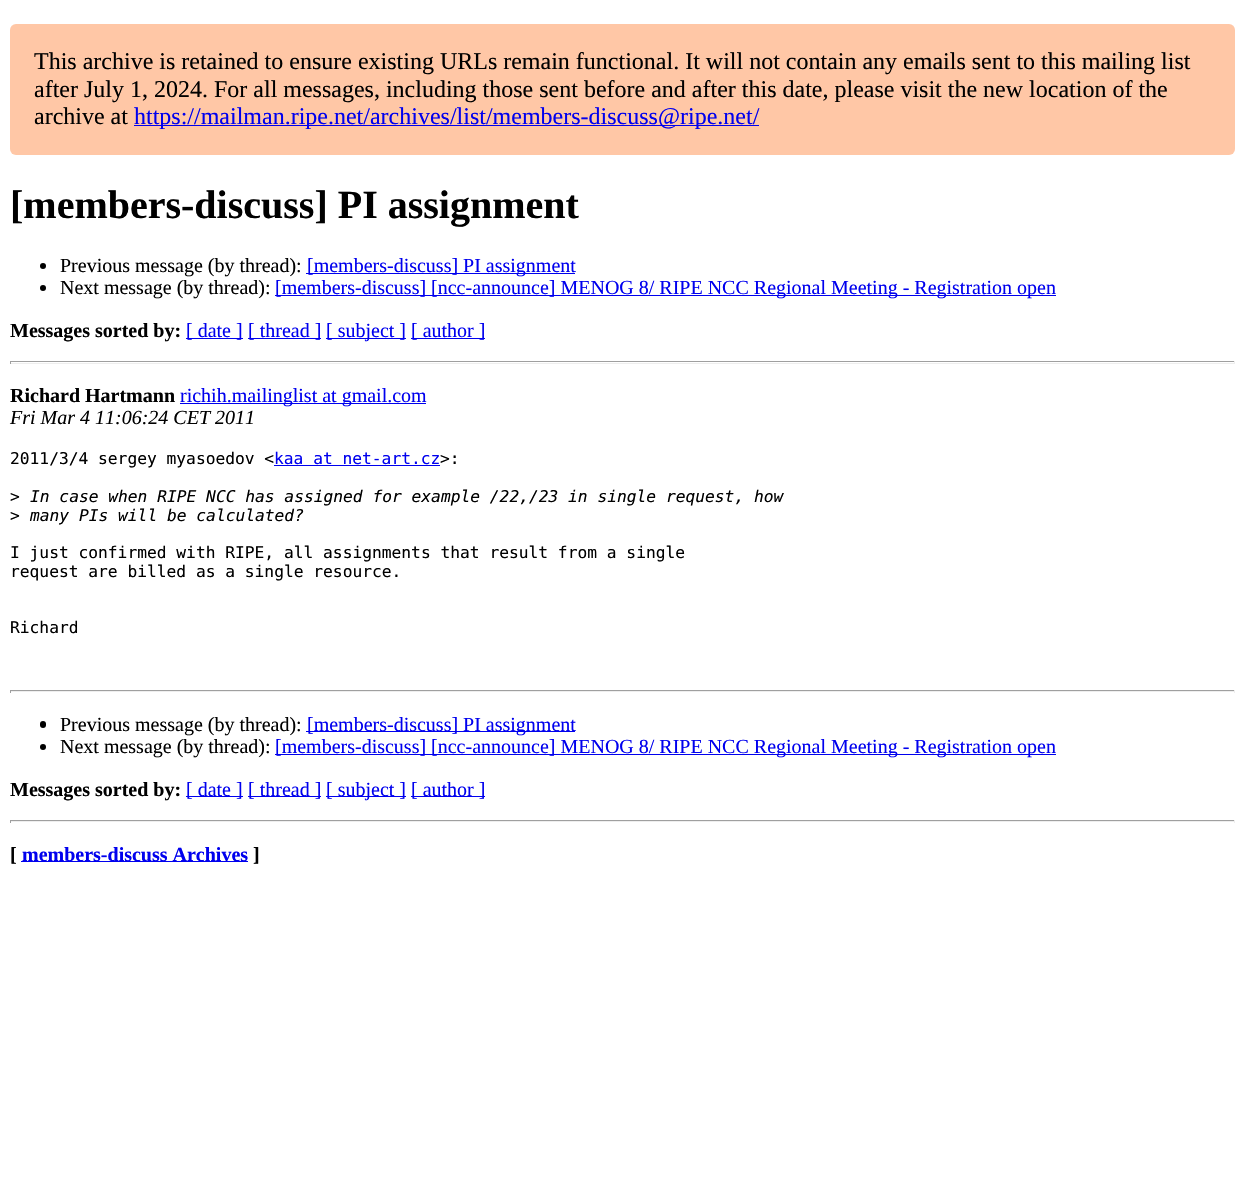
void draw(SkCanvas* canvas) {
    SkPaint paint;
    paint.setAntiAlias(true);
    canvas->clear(0xFFFFFFFF);
    paint.setColor(0xFFFFC7A6);
    canvas->drawRoundRect(SkRect::MakeXYWH(10, 24, 1225, 131), 6, 6, paint);
    SkFont font1(fontMgr->matchFamilyStyle("Liberation Serif", SkFontStyle::Normal()), 24);
    font1.setSubpixel(true);
    paint.setColor(0xFF000000);
    canvas->drawString("This archive is retained to ensure existing URLs remain functional. It will not contain any emails sent to this mailing list", 34, 69, font1, paint);
    canvas->drawString("after July 1, 2024. For all messages, including those sent before and after this date, please visit the new location of the", 34, 97, font1, paint);
    canvas->drawString("archive at", 34, 124, font1, paint);
    paint.setColor(0xFF0000EE);
    canvas->drawRect(SkRect::MakeXYWH(134, 125, 625, 1), paint);
    canvas->drawString("https://mailman.ripe.net/archives/list/members-discuss@ripe.net/", 134, 124, font1, paint);
    SkFont font2(fontMgr->matchFamilyStyle("Liberation Serif", SkFontStyle::Bold()), 40);
    font2.setSubpixel(true);
    paint.setColor(0xFF000000);
    canvas->drawString("[members-discuss] PI assignment", 10, 218, font2, paint);
    canvas->drawCircle(43, 266, 3, paint);
    SkFont font3(fontMgr->matchFamilyStyle("Liberation Serif", SkFontStyle::Normal()), 20);
    font3.setSubpixel(true);
    canvas->drawString("Previous message (by thread):", 60, 272, font3, paint);
    paint.setColor(0xFF0000EE);
    canvas->drawRect(SkRect::MakeXYWH(306, 273, 269, 1), paint);
    canvas->drawString("[members-discuss] PI assignment", 307, 272, font3, paint);
    paint.setColor(0xFF000000);
    canvas->drawCircle(43, 288, 3, paint);
    canvas->drawString("Next message (by thread):", 60, 294, font3, paint);
    paint.setColor(0xFF0000EE);
    canvas->drawRect(SkRect::MakeXYWH(275, 295, 781, 1), paint);
    canvas->drawString("[members-discuss] [ncc-announce] MENOG 8/ RIPE NCC Regional Meeting - Registration open", 275, 294, font3, paint);
    SkFont font4(fontMgr->matchFamilyStyle("Liberation Serif", SkFontStyle::Bold()), 20);
    font4.setSubpixel(true);
    paint.setColor(0xFF000000);
    canvas->drawString("Messages sorted by:", 10, 337, font4, paint);
    paint.setColor(0xFF0000EE);
    canvas->drawRect(SkRect::MakeXYWH(186, 338, 57, 1), paint);
    canvas->drawString("[ date ]", 186, 337, font3, paint);
    canvas->drawRect(SkRect::MakeXYWH(248, 338, 73, 1), paint);
    canvas->drawString("[ thread ]", 248, 337, font3, paint);
    canvas->drawRect(SkRect::MakeXYWH(326, 338, 80, 1), paint);
    canvas->drawString("[ subject ]", 326, 337, font3, paint);
    canvas->drawRect(SkRect::MakeXYWH(411, 338, 74, 1), paint);
    canvas->drawString("[ author ]", 411, 337, font3, paint);
    paint.setColor(0xFF9F9F9F);
    canvas->drawRect(SkRect::MakeXYWH(10, 361, 1225, 1), paint);
    paint.setColor(0xFFEEEEEE);
    canvas->drawRect(SkRect::MakeXYWH(1234, 361, 1, 3), paint);
    canvas->drawRect(SkRect::MakeXYWH(10, 363, 1225, 1), paint);
    paint.setColor(0xFF9F9F9F);
    canvas->drawRect(SkRect::MakeXYWH(10, 361, 1, 3), paint);
    paint.setColor(0xFF000000);
    canvas->drawString("Richard Hartmann", 10, 402, font4, paint);
    paint.setColor(0xFF0000EE);
    canvas->drawRect(SkRect::MakeXYWH(180, 403, 246, 1), paint);
    canvas->drawString("richih.mailinglist at gmail.com", 180, 402, font3, paint);
    SkFont font5(fontMgr->matchFamilyStyle("Liberation Serif", SkFontStyle::Italic()), 20);
    font5.setSubpixel(true);
    paint.setColor(0xFF000000);
    canvas->drawString("Fri Mar 4 11:06:24 CET 2011", 10, 424, font5, paint);
    SkFont font6(fontMgr->matchFamilyStyle("DejaVu Sans Mono", SkFontStyle::Normal()), 16.25f);
    font6.setSubpixel(true);
    canvas->drawString("2011/3/4 sergey myasoedov <", 10, 464, font6, paint);
    paint.setColor(0xFF0000EE);
    canvas->drawString("kaa at net-art.cz", 274, 464, font6, paint);
    canvas->drawRect(SkRect::MakeXYWH(274, 465, 166, 1), paint);
    paint.setColor(0xFF000000);
    canvas->drawString(">:", 440, 464, font6, paint);
    canvas->drawString(">", 10, 502, font6, paint);
    SkFont font7(fontMgr->matchFamilyStyle("DejaVu Sans Mono", SkFontStyle::Italic()), 16.25f);
    font7.setSubpixel(true);
    canvas->drawString("In case when RIPE NCC has assigned for example /22,/23 in single request, how", 30, 502, font7, paint);
    canvas->drawString(">", 10, 521, font6, paint);
    canvas->drawString("many PIs will be calculated?", 30, 521, font7, paint);
    canvas->drawString("I just confirmed with RIPE, all assignments that result from a single", 10, 558, font6, paint);
    canvas->drawString("request are billed as a single resource.", 10, 577, font6, paint);
    canvas->drawString("Richard", 10, 633, font6, paint);
    paint.setColor(0xFF9F9F9F);
    canvas->drawRect(SkRect::MakeXYWH(10, 690, 1225, 1), paint);
    paint.setColor(0xFFEEEEEE);
    canvas->drawRect(SkRect::MakeXYWH(1234, 690, 1, 3), paint);
    canvas->drawRect(SkRect::MakeXYWH(10, 691, 1225, 1), paint);
    paint.setColor(0xFF9F9F9F);
    canvas->drawRect(SkRect::MakeXYWH(10, 690, 1, 3), paint);
    paint.setColor(0xFF000000);
    canvas->drawRoundRect(SkRect::MakeXYWH(40, 721, 6, 7), 3, 3, paint);
    canvas->drawString("Previous message (by thread):", 60, 731, font3, paint);
    paint.setColor(0xFF0000EE);
    canvas->drawRect(SkRect::MakeXYWH(306, 731, 269, 1), paint);
    canvas->drawString("[members-discuss] PI assignment", 307, 731, font3, paint);
    paint.setColor(0xFF000000);
    canvas->drawCircle(43, 747, 3, paint);
    canvas->drawString("Next message (by thread):", 60, 753, font3, paint);
    paint.setColor(0xFF0000EE);
    canvas->drawRect(SkRect::MakeXYWH(275, 754, 781, 1), paint);
    canvas->drawString("[members-discuss] [ncc-announce] MENOG 8/ RIPE NCC Regional Meeting - Registration open", 275, 753, font3, paint);
    paint.setColor(0xFF000000);
    canvas->drawString("Messages sorted by:", 10, 796, font4, paint);
    paint.setColor(0xFF0000EE);
    canvas->drawRect(SkRect::MakeXYWH(186, 796, 57, 1), paint);
    canvas->drawString("[ date ]", 186, 796, font3, paint);
    canvas->drawRect(SkRect::MakeXYWH(248, 796, 73, 1), paint);
    canvas->drawString("[ thread ]", 248, 796, font3, paint);
    canvas->drawRect(SkRect::MakeXYWH(326, 796, 80, 1), paint);
    canvas->drawString("[ subject ]", 326, 796, font3, paint);
    canvas->drawRect(SkRect::MakeXYWH(411, 796, 74, 1), paint);
    canvas->drawString("[ author ]", 411, 796, font3, paint);
    paint.setColor(0xFF9F9F9F);
    canvas->drawRect(SkRect::MakeXYWH(10, 820, 1225, 1), paint);
    paint.setColor(0xFFEEEEEE);
    canvas->drawRect(SkRect::MakeXYWH(1234, 820, 1, 3), paint);
    canvas->drawRect(SkRect::MakeXYWH(10, 821, 1225, 1), paint);
    paint.setColor(0xFF9F9F9F);
    canvas->drawRect(SkRect::MakeXYWH(10, 820, 1, 3), paint);
    paint.setColor(0xFF000000);
    canvas->drawString("[", 10, 861, font4, paint);
    paint.setColor(0xFF0000EE);
    canvas->drawRect(SkRect::MakeXYWH(21, 861, 227, 1), paint);
    canvas->drawString("members-discuss Archives", 22, 861, font4, paint);
    paint.setColor(0xFF000000);
    canvas->drawString("]", 253, 861, font4, paint);
}
